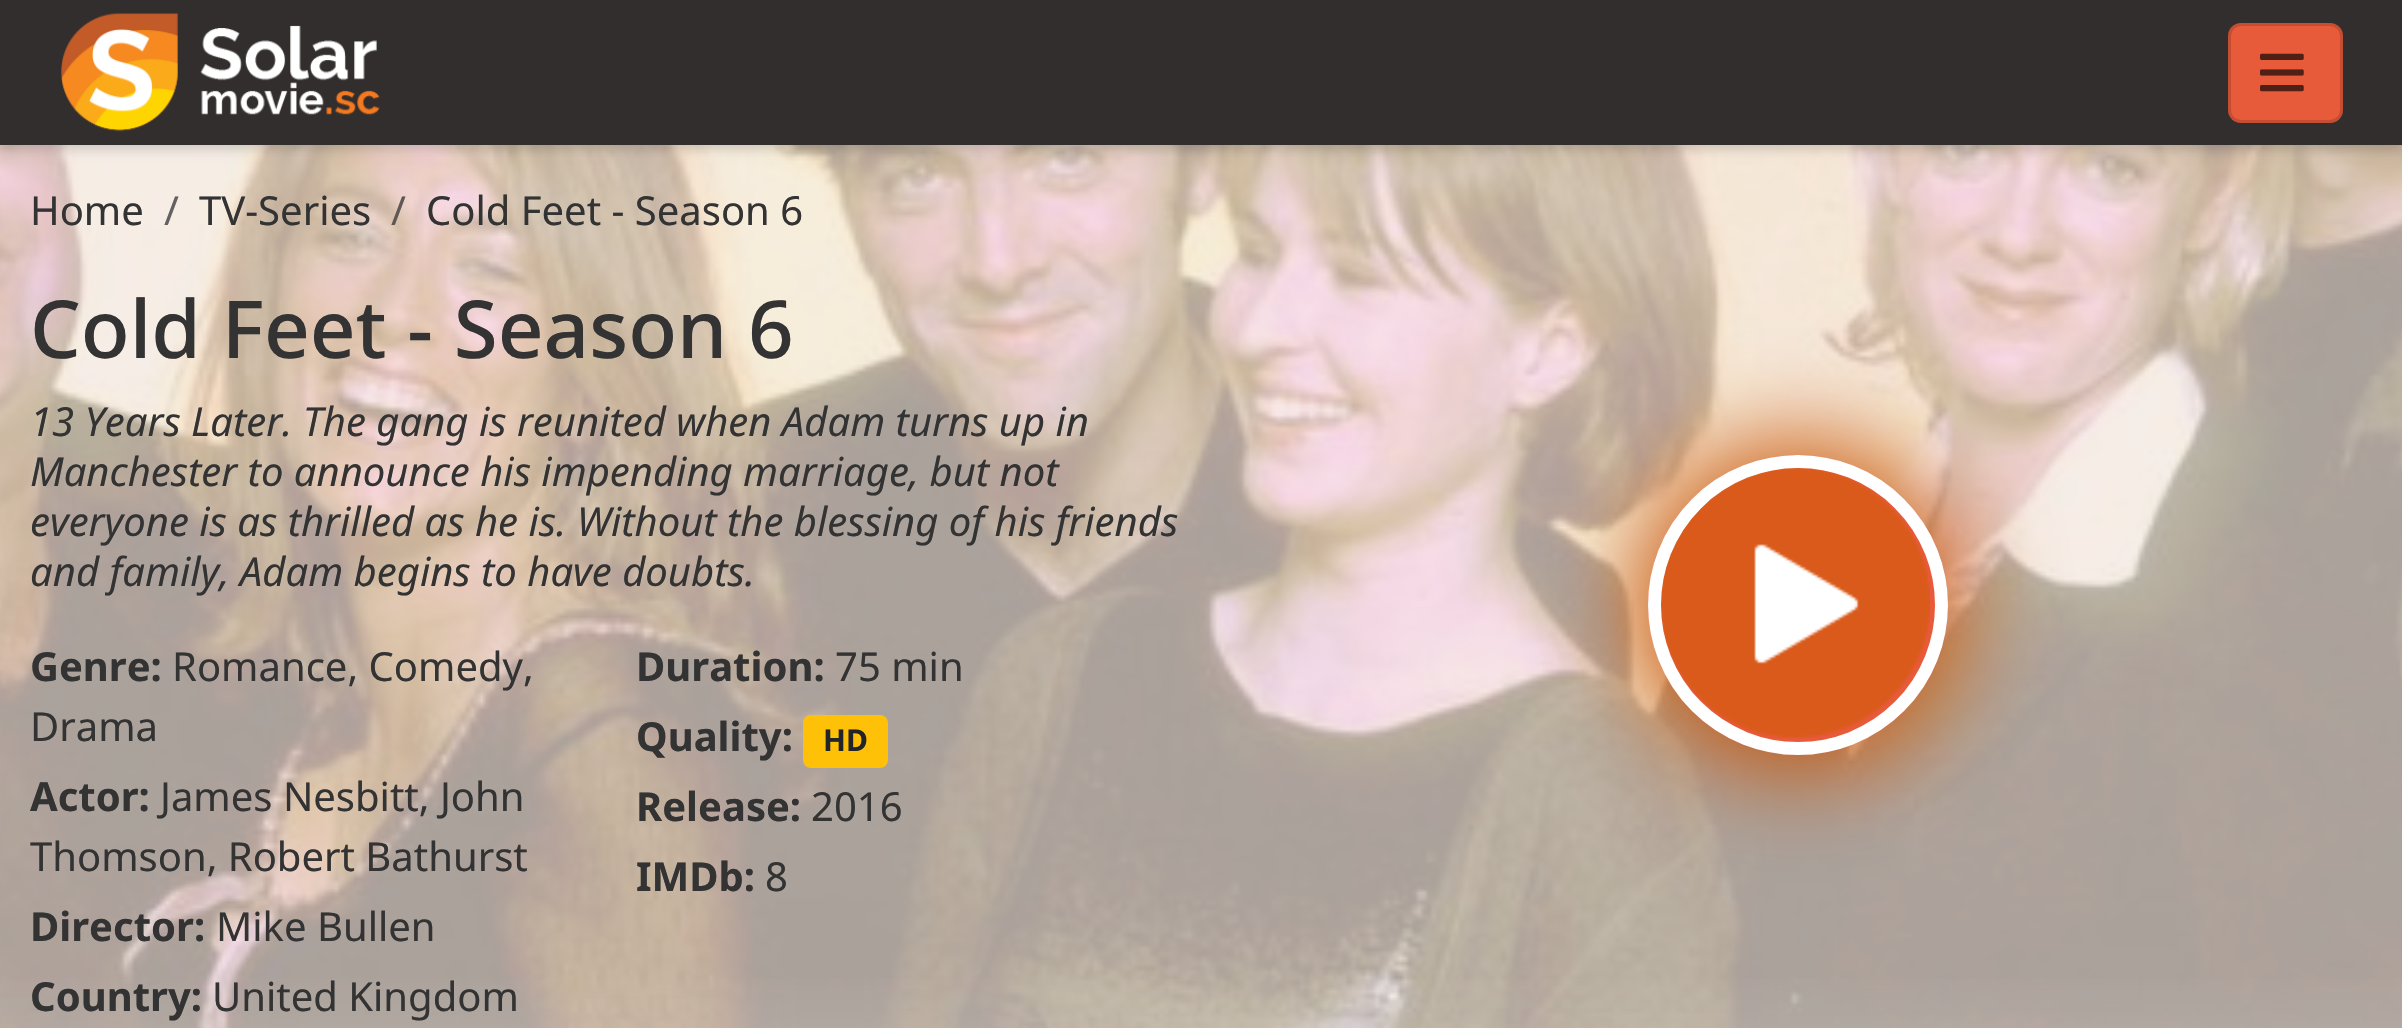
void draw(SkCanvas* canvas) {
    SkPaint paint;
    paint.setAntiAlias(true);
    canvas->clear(0xFFFFFFFF);
    canvas->drawImageRect(SkImages::DeferredFromEncodedData(SkData::MakeFromFileName("img3.png")), SkRect::MakeXYWH(0, 145, 2402, 883), SkSamplingOptions());
    paint.setColor(0x26000000);
    paint.setMaskFilter(SkMaskFilter::MakeBlur(kNormal_SkBlurStyle, 5));
    canvas->drawRect(SkRect::MakeXYWH(0, 5, 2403, 145), paint);
    paint.setMaskFilter(nullptr);
    paint.setColor(0xFF322E2D);
    canvas->drawRect(SkRect::MakeXYWH(0, 0, 2402, 145), paint);
    canvas->drawImageRect(SkImages::DeferredFromEncodedData(SkData::MakeFromFileName("img1.png")), SkRect::MakeXYWH(61, 13, 319, 119), SkSamplingOptions());
    paint.setColor(0xFFE75A3A);
    canvas->drawRoundRect(SkRect::MakeXYWH(2228, 23, 115, 100), 13, 13, paint);
    paint.setStyle(SkPaint::kStroke_Style);
    paint.setStrokeWidth(3);
    paint.setColor(0x26000000);
    canvas->drawRoundRect(SkRect::MakeXYWH(2229.5f, 24.5f, 112, 97), 11.5f, 11.5f, paint);
    canvas->drawImageRect(SkImages::DeferredFromEncodedData(SkData::MakeFromFileName("img2.png")), SkRect::MakeXYWH(2260, 53, 44, 39), SkSamplingOptions());
    canvas->drawImageRect(SkImages::DeferredFromEncodedData(SkData::MakeFromFileName("img4.png")), SkRect::MakeXYWH(0, 979, 2402, 49), SkSamplingOptions());
    SkFont font1(fontMgr->matchFamilyStyle("Noto Sans", SkFontStyle::Normal()), 40);
    font1.setSubpixel(true);
    paint.setStyle(SkPaint::kFill_Style);
    paint.setColor(0xFF333333);
    canvas->drawString("Home", 30, 225, font1, paint);
    paint.setColor(0xFF646160);
    canvas->drawString("/", 164, 225, font1, paint);
    paint.setColor(0xFF333333);
    canvas->drawString("TV-Series", 199, 225, font1, paint);
    paint.setColor(0xFF5F5855);
    canvas->drawString("/", 391, 225, font1, paint);
    paint.setColor(0xFF333333);
    canvas->drawString("Cold Feet - Season 6", 426, 225, font1, paint);
    SkFont font2(fontMgr->matchFamilyStyle("Noto Sans", SkFontStyle(500, SkFontStyle::kNormal_Width, SkFontStyle::kUpright_Slant)), 80);
    font2.setSubpixel(true);
    canvas->drawString("Cold Feet - Season 6", 30, 358, font2, paint);
    SkFont font3(fontMgr->matchFamilyStyle("Noto Sans", SkFontStyle::Italic()), 40);
    font3.setSubpixel(true);
    canvas->drawString("13 Years Later. The gang is reunited when Adam turns up in", 30, 436, font3, paint);
    canvas->drawString("Manchester to announce his impending marriage, but not", 30, 486, font3, paint);
    canvas->drawString("everyone is as thrilled as he is. Without the blessing of his friends", 30, 536, font3, paint);
    canvas->drawString("and family, Adam begins to have doubts.", 30, 586, font3, paint);
    SkFont font4(fontMgr->matchFamilyStyle("Noto Sans", SkFontStyle::Bold()), 40);
    font4.setSubpixel(true);
    canvas->drawString("Genre:", 30, 681, font4, paint);
    canvas->drawString("Romance, Comedy,", 172, 681, font1, paint);
    canvas->drawString("Drama", 30, 741, font1, paint);
    canvas->drawString("Actor:", 30, 811, font4, paint);
    canvas->drawString("James Nesbitt, John", 160, 811, font1, paint);
    canvas->drawString("Thomson, Robert Bathurst", 30, 871, font1, paint);
    canvas->drawString("Director:", 30, 941, font4, paint);
    canvas->drawString("Mike Bullen", 216, 941, font1, paint);
    canvas->drawString("Country:", 30, 1011, font4, paint);
    canvas->drawString("United Kingdom", 212, 1011, font1, paint);
    canvas->drawString("Duration:", 636, 681, font4, paint);
    canvas->drawString("75 min", 835, 681, font1, paint);
    canvas->drawString("Quality:", 636, 751, font4, paint);
    paint.setColor(0xFFFFC107);
    canvas->drawRoundRect(SkRect::MakeXYWH(803, 715, 85, 53), 8, 8, paint);
    SkFont font5(fontMgr->matchFamilyStyle("Noto Sans", SkFontStyle::Bold()), 30);
    font5.setSubpixel(true);
    paint.setColor(0xFF212529);
    canvas->drawString("HD", 823, 751, font5, paint);
    paint.setColor(0xFF333333);
    canvas->drawString("Release:", 636, 821, font4, paint);
    canvas->drawString("2016", 811, 821, font1, paint);
    canvas->drawString("IMDb:", 636, 891, font4, paint);
    canvas->drawString("8", 765, 891, font1, paint);
    paint.setColor(0xFFC95100);
    paint.setMaskFilter(SkMaskFilter::MakeBlur(kNormal_SkBlurStyle, 50));
    canvas->drawRoundRect(SkRect::MakeXYWH(1635, 443, 325, 325), 162.5f, 162.5f, paint);
    paint.setMaskFilter(nullptr);
    paint.setColor(0xFFE75A3A);
    canvas->drawCircle(1798, 605, 150, paint);
    canvas->drawImageRect(SkImages::DeferredFromEncodedData(SkData::MakeFromFileName("img5.png")), SkRect::MakeXYWH(1661, 468, 269, 270), SkSamplingOptions());
    paint.setStyle(SkPaint::kStroke_Style);
    paint.setStrokeWidth(13);
    paint.setColor(0xFFFFFFFF);
    canvas->drawCircle(1798, 605, 143.5f, paint);
}
